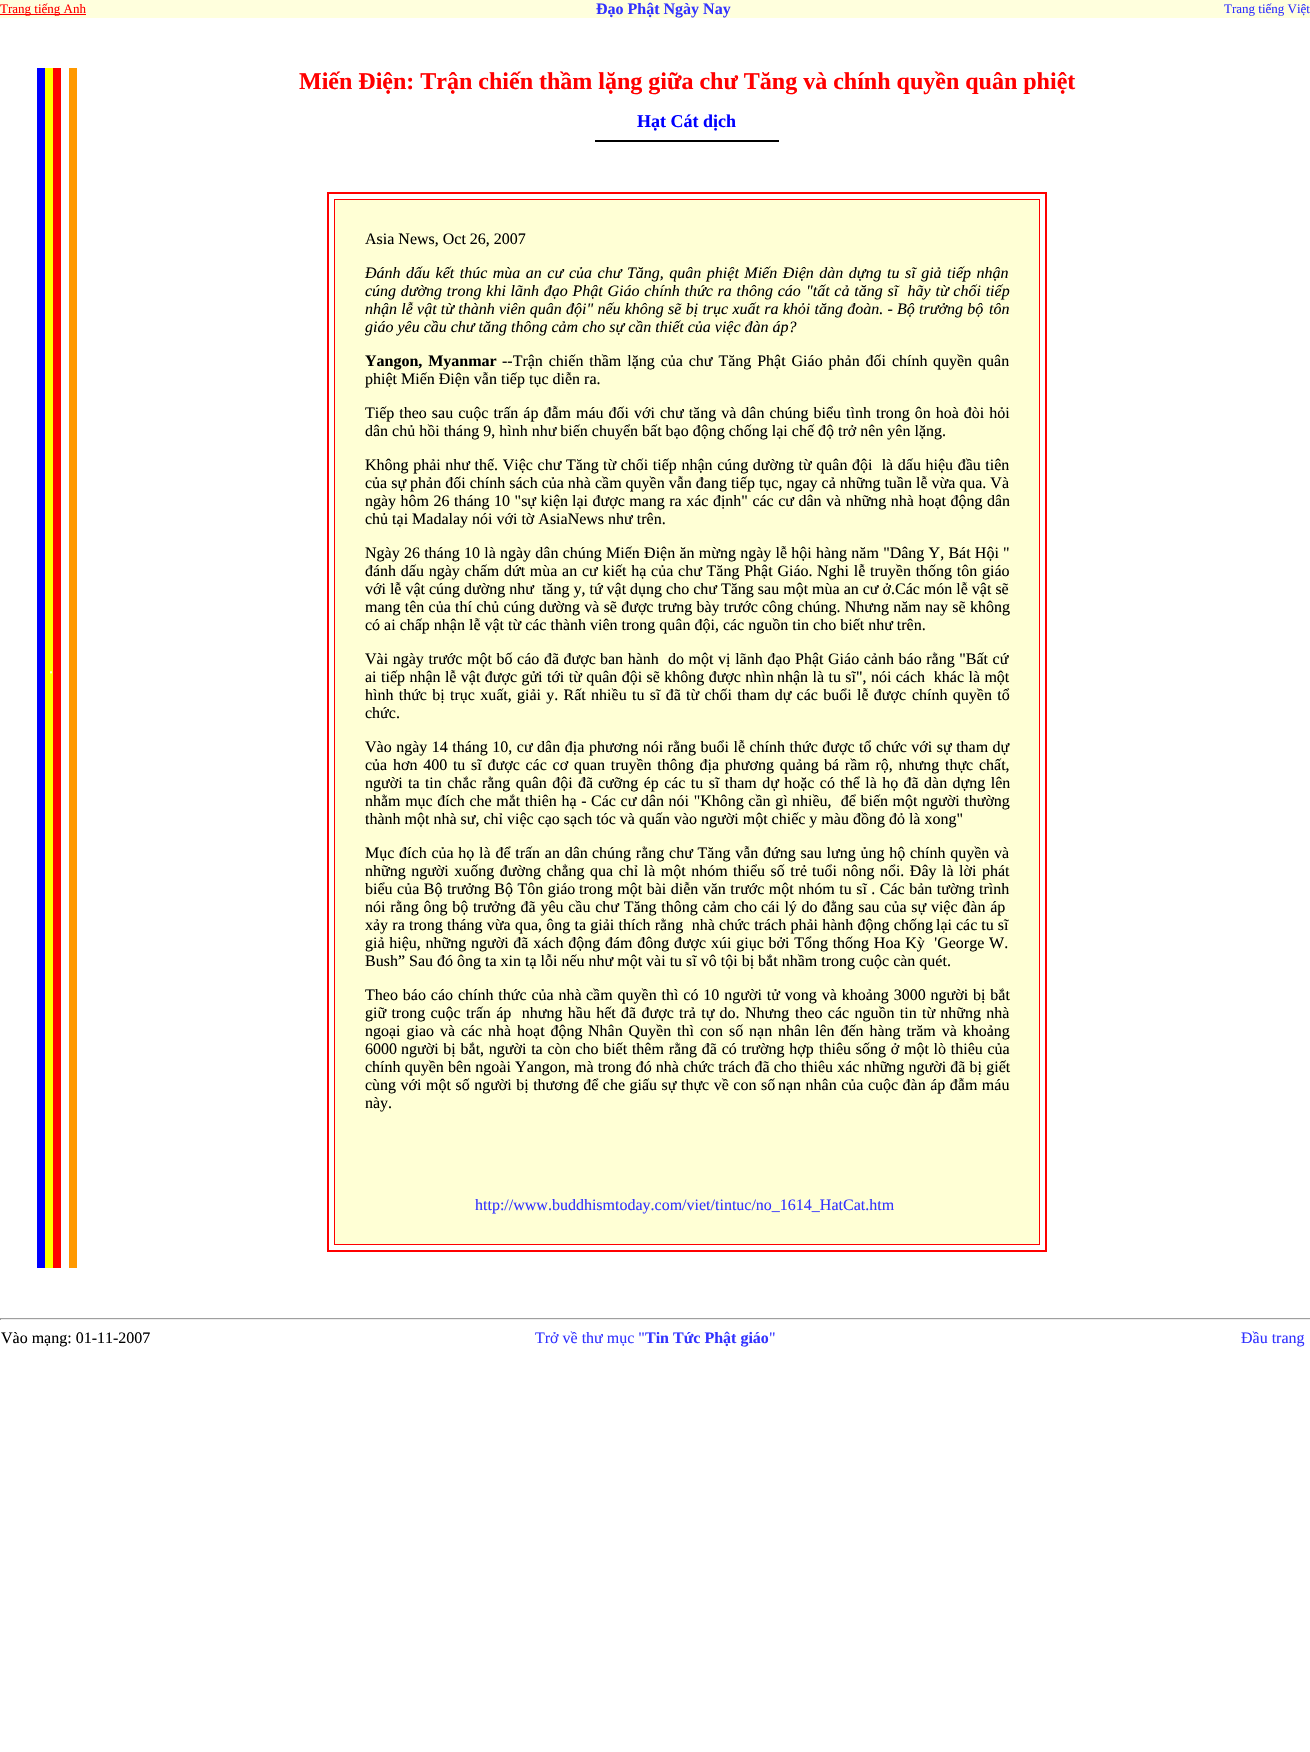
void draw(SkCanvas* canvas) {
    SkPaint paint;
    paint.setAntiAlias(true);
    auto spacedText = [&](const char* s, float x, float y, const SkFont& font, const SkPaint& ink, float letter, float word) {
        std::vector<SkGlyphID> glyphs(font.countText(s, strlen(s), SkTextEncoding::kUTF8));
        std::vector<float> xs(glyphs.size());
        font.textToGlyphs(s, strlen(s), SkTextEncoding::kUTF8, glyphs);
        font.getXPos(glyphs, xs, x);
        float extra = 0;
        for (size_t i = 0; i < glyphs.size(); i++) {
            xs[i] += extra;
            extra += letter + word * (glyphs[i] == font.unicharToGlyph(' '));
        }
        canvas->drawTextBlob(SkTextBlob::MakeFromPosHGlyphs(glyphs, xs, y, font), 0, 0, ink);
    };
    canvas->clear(0xFFFFFFFF);
    paint.setColor(0xFFFFFFDD);
    canvas->drawRect(SkRect::MakeXYWH(0, 0, 1310, 18), paint);
    paint.setColor(0xFFFF0000);
    canvas->drawRect(SkRect::MakeXYWH(0, 14, 86, 1), paint);
    SkFont font1(fontMgr->matchFamilyStyle("Liberation Serif", SkFontStyle::Normal()), 13);
    font1.setSubpixel(true);
    canvas->drawString("Trang tiếng Anh", 0, 13, font1, paint);
    SkFont font2(fontMgr->matchFamilyStyle("Liberation Serif", SkFontStyle::Bold()), 16);
    font2.setSubpixel(true);
    paint.setColor(0xFF3333FF);
    canvas->drawString("Đạo Phật Ngày Nay", 596, 14, font2, paint);
    canvas->drawString("Trang tiếng Việt", 1224, 13, font1, paint);
    paint.setColor(0xFF0000FF);
    canvas->drawRect(SkRect::MakeXYWH(37, 68, 8, 1200), paint);
    paint.setColor(0xFFFFFF00);
    canvas->drawRect(SkRect::MakeXYWH(45, 68, 8, 1200), paint);
    SkFont font3(fontMgr->matchFamilyStyle("Liberation Serif", SkFontStyle::Normal()), 16);
    font3.setSubpixel(true);
    paint.setColor(0xFFFFFFFF);
    canvas->drawString(".", 49, 673, font3, paint);
    paint.setColor(0xFFFF0000);
    canvas->drawRect(SkRect::MakeXYWH(53, 68, 8, 1200), paint);
    paint.setColor(0xFFFF9900);
    canvas->drawRect(SkRect::MakeXYWH(69, 68, 8, 1200), paint);
    SkFont font4(fontMgr->matchFamilyStyle("Liberation Serif", SkFontStyle::Bold()), 24);
    font4.setSubpixel(true);
    paint.setColor(0xFFFF0000);
    canvas->drawString("Miến Điện: Trận chiến thầm lặng giữa chư Tăng và chính quyền quân phiệt", 299, 89, font4, paint);
    SkFont font5(fontMgr->matchFamilyStyle("Liberation Serif", SkFontStyle::Bold()), 18);
    font5.setSubpixel(true);
    paint.setColor(0xFF0000FF);
    canvas->drawString("Hạt Cát dịch", 637, 127, font5, paint);
    paint.setColor(0xFF000000);
    canvas->drawRect(SkRect::MakeXYWH(595, 140, 184, 2), paint);
    paint.setStyle(SkPaint::kStroke_Style);
    paint.setStrokeWidth(2);
    paint.setColor(0xFFFF0000);
    canvas->drawRect(SkRect::MakeXYWH(328, 193, 718, 1058), paint);
    paint.setStyle(SkPaint::kFill_Style);
    paint.setColor(0xFFFFFFD5);
    canvas->drawRect(SkRect::MakeXYWH(334.5f, 199.5f, 705, 1045), paint);
    paint.setStyle(SkPaint::kStroke_Style);
    paint.setStrokeWidth(1);
    paint.setColor(0xFFFF0000);
    canvas->drawRect(SkRect::MakeXYWH(334.5f, 199.5f, 705, 1045), paint);
    paint.setStyle(SkPaint::kFill_Style);
    paint.setColor(0xFF000000);
    canvas->drawString("Asia News, Oct 26, 2007", 365, 244, font3, paint);
    SkFont font6(fontMgr->matchFamilyStyle("Liberation Serif", SkFontStyle::Italic()), 16);
    font6.setSubpixel(true);
    spacedText("Đánh dấu kết thúc mùa an cư", 365, 278, font6, paint, 0, 1.5f);
    spacedText("của chư Tăng, quân phiệt Miến Điện dàn dựng tu sĩ giả tiếp nhận", 569, 278, font6, paint, 0, 1.5f);
    spacedText("cúng dường trong khi lãnh đạo Phật Giáo chính thức ra thông cáo", 365, 296, font6, paint, 0, 0.75f);
    spacedText("\"tất cả tăng sĩ  hãy từ chối tiếp", 806, 296, font6, paint, 0, 0.75f);
    spacedText("nhận lễ vật từ thành viên quân", 365, 314, font6, paint, 0, 0.25f);
    spacedText("đội\" nếu không sẽ bị trục xuất ra khỏi tăng đoàn. - Bộ trưởng bộ", 566, 314, font6, paint, 0, 0.25f);
    canvas->drawString("tôn", 989, 314, font6, paint);
    canvas->drawString("giáo yêu cầu chư tăng thông cảm cho sự cần thiết của việc đàn áp?", 365, 332, font6, paint);
    spacedText("Yangon, Myanmar", 365, 366, font2, paint, 0, 1.9f);
    spacedText("--Trận chiến thầm lặng của chư Tăng Phật Giáo phản đối chính", 502, 366, font3, paint, 0, 1.9f);
    spacedText("quyền quân", 933, 366, font3, paint, 0, 2);
    canvas->drawString("phiệt Miến Điện vẫn tiếp tục diễn ra.", 365, 384, font3, paint);
    spacedText("Tiếp theo sau cuộc trấn áp đẫm", 365, 418, font3, paint, 0, 1);
    spacedText("máu đối với chư tăng và dân chúng biểu tình trong ôn hoà đòi hỏi", 576, 418, font3, paint, 0, 1);
    canvas->drawString("dân chủ hồi tháng 9, hình như biến chuyển bất bạo động chống lại chế độ trở nên yên lặng.", 365, 436, font3, paint);
    spacedText("Không phải như thế. Việc chư Tăng", 365, 470, font3, paint, 0, 0.6f);
    spacedText("từ chối tiếp nhận cúng dường từ quân đội  là dấu hiệu đầu tiên", 603, 470, font3, paint, 0, 0.6f);
    canvas->drawString("của sự phản đối chính sách của nhà cầm quyền vẫn đang tiếp tục, ngay cả những tuần lễ vừa qua. Và", 365, 488, font3, paint);
    spacedText("ngày hôm 26 tháng 10 \"sự kiện", 365, 506, font3, paint, 0, 0.5f);
    spacedText("lại được mang ra xác định\" các cư dân và những nhà hoạt động dân", 572, 506, font3, paint, 0, 0.5f);
    canvas->drawString("chủ tại Madalay nói với tờ AsiaNews như trên.", 365, 524, font3, paint);
    spacedText("Ngày 26 tháng 10 là ngày dân chúng Miến Điện ăn mừng ngày lễ hội hàng năm \"Dâng Y, Bát Hội \"", 365, 558, font3, paint, 0, 0.25f);
    spacedText("đánh dấu ngày chấm dứt mùa an cư kiết hạ của chư Tăng Phật Giáo.", 365, 576, font3, paint, 0, 0.75f);
    spacedText("Nghi lễ truyền thống tôn giáo", 817, 576, font3, paint, 0, 0.75f);
    canvas->drawString("với lễ vật cúng dường như  tăng y, tứ vật dụng cho chư Tăng sau một mùa an cư ở.Các món lễ vật sẽ", 365, 594, font3, paint);
    spacedText("mang tên của thí chủ cúng dường và sẽ được trưng bày trước công chúng. Nhưng năm nay sẽ không", 365, 612, font3, paint, 0, 0.25f);
    canvas->drawString("có ai chấp nhận lễ vật từ các thành viên trong quân đội, các nguồn tin cho biết như trên.", 365, 630, font3, paint);
    spacedText("Vài ngày trước một bố cáo đã được", 365, 664, font3, paint, 0, 0.6f);
    spacedText("ban hành  do một vị lãnh đạo Phật Giáo cảnh báo rằng \"Bất cứ", 600, 664, font3, paint, 0, 0.6f);
    canvas->drawString("ai", 365, 682, font3, paint);
    spacedText("tiếp nhận lễ vật được gửi tới từ quân đội sẽ không được nhìn", 381, 682, font3, paint, 0, 0.4f);
    spacedText("nhận là tu sĩ\", nói cách  khác là một", 777, 682, font3, paint, 0, 0.4f);
    spacedText("hình thức bị trục xuất,", 365, 700, font3, paint, 0, 1.3f);
    spacedText("giải y. Rất nhiều tu sĩ đã từ chối tham dự các buổi lễ được", 517, 700, font3, paint, 0, 1.3f);
    spacedText("chính quyền tổ", 912, 700, font3, paint, 0, 1.3f);
    canvas->drawString("chức.", 365, 718, font3, paint);
    spacedText("Vào ngày 14 tháng 10, cư dân địa", 365, 752, font3, paint, 0, 0.5f);
    spacedText("phương nói rằng buổi lễ chính thức được tổ chức với sự tham dự", 589, 752, font3, paint, 0, 0.5f);
    spacedText("của hơn 400 tu sĩ được các cơ quan truyền thông địa phương quảng", 365, 770, font3, paint, 0, 1.75f);
    spacedText("bá rầm rộ, nhưng thực chất,", 824, 770, font3, paint, 0, 1.75f);
    spacedText("người ta tin chắc rằng quân đội đã", 365, 788, font3, paint, 0, 1.4f);
    spacedText("cưỡng ép các tu sĩ tham dự hoặc có thể là họ đã dàn dựng lên", 598, 788, font3, paint, 0, 1.4f);
    spacedText("nhằm mục đích che mắt thiên hạ - Các cư dân nói \"Không cần gì", 365, 806, font3, paint, 0, 0.6f);
    spacedText("nhiều,  để biến một người thường", 792, 806, font3, paint, 0, 0.6f);
    canvas->drawString("thành một nhà sư, chỉ việc cạo sạch tóc và quấn vào người một chiếc y màu đồng đỏ là xong\"", 365, 824, font3, paint);
    spacedText("Mục đích của họ là để trấn an dân", 365, 858, font3, paint, 0, 0.75f);
    spacedText("chúng rằng chư Tăng vẫn đứng sau lưng ủng hộ chính quyền và", 592, 858, font3, paint, 0, 0.75f);
    spacedText("những người xuống đường chẳng qua chỉ là một nhóm thiểu số trẻ", 365, 876, font3, paint, 0, 1.5f);
    spacedText("tuổi nông nổi. Đây là lời phát", 812, 876, font3, paint, 0, 1.5f);
    spacedText("biểu của Bộ trưởng Bộ Tôn giáo", 365, 894, font3, paint, 0, 0.5f);
    spacedText("trong một bài diễn văn trước một nhóm tu sĩ . Các bản tường", 579, 894, font3, paint, 0, 0.5f);
    canvas->drawString("trình", 979, 894, font3, paint);
    spacedText("nói rằng ông bộ trưởng đã yêu cầu chư Tăng thông cảm cho", 365, 912, font3, paint, 0, 0.75f);
    spacedText("cái lý do đằng sau của sự việc đàn áp", 761, 912, font3, paint, 0, 0.75f);
    spacedText("xảy ra trong tháng vừa qua, ông ta giải thích rằng  nhà chức trách phải hành động chống", 365, 930, font3, paint, 0, 0.25f);
    canvas->drawString("lại các tu sĩ", 936, 930, font3, paint);
    spacedText("giả hiệu, những người đã xách động đám đông được", 365, 948, font3, paint, 0, 0.75f);
    spacedText("xúi giục bởi Tổng thống Hoa Kỳ  'George W.", 711, 948, font3, paint, 0, 0.75f);
    canvas->drawString("Bush” Sau đó ông ta xin tạ lỗi nếu như một vài tu sĩ vô tội bị bắt nhầm trong cuộc càn quét.", 365, 966, font3, paint);
    spacedText("Theo báo cáo chính thức của nhà", 365, 1000, font3, paint, 0, 0.9f);
    spacedText("cầm quyền thì có 10 người tử vong và khoảng 3000 người bị bắt", 586, 1000, font3, paint, 0, 0.9f);
    spacedText("giữ trong cuộc trấn áp  nhưng hầu hết đã được trả tự do. Nhưng", 365, 1018, font3, paint, 0, 1.3f);
    spacedText("theo các nguồn tin từ những nhà", 795, 1018, font3, paint, 0, 1.3f);
    spacedText("ngoại giao và các nhà hoạt động", 365, 1036, font3, paint, 0, 1.9f);
    spacedText("Nhân Quyền thì con số nạn nhân lên đến hàng trăm và khoảng", 588, 1036, font3, paint, 0, 1.9f);
    canvas->drawString("6000", 365, 1054, font3, paint);
    spacedText("người bị bắt, người ta còn cho biết thêm rằng đã có trường hợp", 401, 1054, font3, paint, 0, 0.75f);
    spacedText("thiêu sống ở một lò thiêu của", 819, 1054, font3, paint, 0, 0.75f);
    spacedText("chính quyền bên ngoài Yangon, mà trong đó nhà chức trách đã cho thiêu xác những người đã bị giết", 365, 1072, font3, paint, 0, 0.2f);
    spacedText("cùng với một số người bị thương để che giấu sự thực về con số", 365, 1090, font3, paint, 0, 0.5f);
    spacedText("nạn nhân của cuộc đàn áp đẫm máu", 778, 1090, font3, paint, 0, 0.5f);
    canvas->drawString("này.", 365, 1108, font3, paint);
    paint.setColor(0xFF3333FF);
    canvas->drawString("http://www.buddhismtoday.com/viet/tintuc/no_1614_HatCat.htm", 475, 1210, font3, paint);
    paint.setColor(0xFF9F9F9F);
    canvas->drawRect(SkRect::MakeXYWH(0, 1318, 1310, 1), paint);
    paint.setColor(0xFFEEEEEE);
    canvas->drawRect(SkRect::MakeXYWH(0, 1319, 1310, 1), paint);
    paint.setColor(0xFF9F9F9F);
    canvas->drawRect(SkRect::MakeXYWH(0, 1318, 1, 2), paint);
    paint.setColor(0xFF000000);
    canvas->drawString("Vào mạng: 01-11-2007", 1, 1343, font3, paint);
    paint.setColor(0xFF3333FF);
    canvas->drawString("Trở về thư mục \"", 535, 1343, font3, paint);
    canvas->drawString("Tin Tức Phật giáo", 645, 1343, font2, paint);
    canvas->drawString("\"", 769, 1343, font3, paint);
    canvas->drawString("Đầu trang", 1241, 1343, font3, paint);
}
